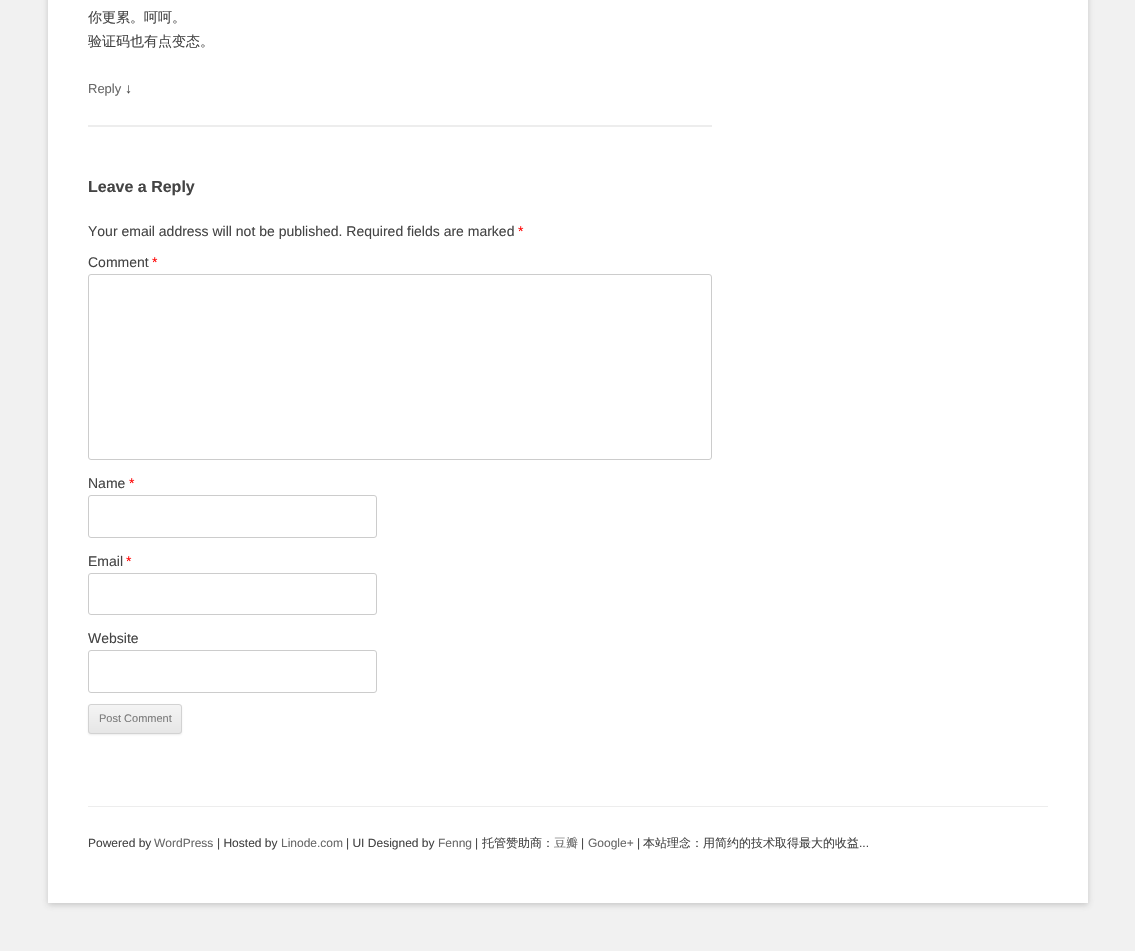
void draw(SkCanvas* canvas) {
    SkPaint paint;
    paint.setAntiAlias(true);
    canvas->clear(0xFFF1F1F1);
    paint.setColor(0x4D646464);
    paint.setMaskFilter(SkMaskFilter::MakeBlur(kNormal_SkBlurStyle, 3));
    canvas->drawRect(SkRect::MakeXYWH(48, -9, 1040, 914), paint);
    paint.setMaskFilter(nullptr);
    paint.setColor(0xFFFFFFFF);
    canvas->drawRect(SkRect::MakeXYWH(48, 0, 1040, 903), paint);
    paint.setColor(0xFFEDEDED);
    canvas->drawRect(SkRect::MakeXYWH(88, 125, 624, 2), paint);
    SkFont font1(fontMgr->matchFamilyStyle("WenQuanYi Zen Hei", SkFontStyle(500, SkFontStyle::kNormal_Width, SkFontStyle::kUpright_Slant)), 14);
    font1.setSubpixel(true);
    paint.setColor(0xFF444444);
    canvas->drawString("你更累。呵呵。", 88, 22, font1, paint);
    canvas->drawString("验证码也有点变态。", 88, 46, font1, paint);
    SkFont font2(fontMgr->matchFamilyStyle("Liberation Sans", SkFontStyle::Normal()), 13);
    font2.setSubpixel(true);
    paint.setColor(0xFF686868);
    canvas->drawString("Reply", 88, 93, font2, paint);
    SkFont font3(fontMgr->matchFamilyStyle("Liberation Sans", SkFontStyle::Normal()), 14);
    font3.setSubpixel(true);
    paint.setColor(0xFF444444);
    canvas->drawString("↓", 125, 93, font3, paint);
    SkFont font4(fontMgr->matchFamilyStyle("Liberation Sans", SkFontStyle::Bold()), 16);
    font4.setSubpixel(true);
    canvas->drawString("Leave a Reply", 88, 192, font4, paint);
    canvas->drawString("Your email address will not be published. Required fields are marked", 88, 236, font3, paint);
    paint.setColor(0xFFFF0000);
    canvas->drawString("*", 518, 236, font3, paint);
    paint.setColor(0xFF444444);
    canvas->drawString("Comment", 88, 267, font3, paint);
    paint.setColor(0xFFFF0000);
    canvas->drawString("*", 152, 267, font3, paint);
    paint.setStyle(SkPaint::kStroke_Style);
    paint.setStrokeWidth(1);
    paint.setColor(0xFFCCCCCC);
    canvas->drawRoundRect(SkRect::MakeXYWH(88.5f, 274.5f, 623, 185), 2.5f, 2.5f, paint);
    paint.setStyle(SkPaint::kFill_Style);
    paint.setColor(0xFF444444);
    canvas->drawString("Name", 88, 488, font3, paint);
    paint.setColor(0xFFFF0000);
    canvas->drawString("*", 129, 488, font3, paint);
    paint.setStyle(SkPaint::kStroke_Style);
    paint.setColor(0xFFCCCCCC);
    canvas->drawRoundRect(SkRect::MakeXYWH(88.5f, 495.5f, 288, 42), 2.5f, 2.5f, paint);
    paint.setStyle(SkPaint::kFill_Style);
    paint.setColor(0xFF444444);
    canvas->drawString("Email", 88, 566, font3, paint);
    paint.setColor(0xFFFF0000);
    canvas->drawString("*", 126, 566, font3, paint);
    paint.setStyle(SkPaint::kStroke_Style);
    paint.setColor(0xFFCCCCCC);
    canvas->drawRoundRect(SkRect::MakeXYWH(88.5f, 573.5f, 288, 41), 2.5f, 2.5f, paint);
    paint.setStyle(SkPaint::kFill_Style);
    paint.setColor(0xFF444444);
    canvas->drawString("Website", 88, 643, font3, paint);
    paint.setStyle(SkPaint::kStroke_Style);
    paint.setColor(0xFFCCCCCC);
    canvas->drawRoundRect(SkRect::MakeXYWH(88.5f, 650.5f, 288, 42), 2.5f, 2.5f, paint);
    paint.setStyle(SkPaint::kFill_Style);
    paint.setColor(0x1A404040);
    paint.setMaskFilter(SkMaskFilter::MakeBlur(kNormal_SkBlurStyle, 1));
    canvas->drawRoundRect(SkRect::MakeXYWH(88, 705, 94, 30), 3, 3, paint);
    paint.setMaskFilter(nullptr);
    canvas->save();
    canvas->clipPath(SkPathBuilder().moveTo(91, 704).lineTo(179, 704).cubicTo(180.5f, 704, 182, 705.5f, 182, 707).lineTo(182, 731).cubicTo(182, 732.5f, 180.5f, 734, 179, 734).lineTo(91, 734).cubicTo(89.5f, 734, 88, 732.5f, 88, 731).lineTo(88, 707).cubicTo(88, 705.5f, 89.5f, 704, 91, 704).close().detach(), true);
    {
        const SkColor colors[] = {0xFFF4F4F4, 0xFFE6E6E6};
        const float stops[] = {0, 1};
        const SkPoint ends[] = {{135, 705}, {135, 733}};
        paint.setShader(SkGradientShader::MakeLinear(ends, colors, stops, 2, SkTileMode::kClamp));
        paint.setAlpha(255);
    }
    canvas->drawRect(SkRect::MakeXYWH(88, 705, 94, 28), paint);
    canvas->restore();
    paint.setStyle(SkPaint::kStroke_Style);
    paint.setShader(nullptr);
    paint.setColor(0xFFD2D2D2);
    canvas->drawRoundRect(SkRect::MakeXYWH(88.5f, 704.5f, 93, 29), 2.5f, 2.5f, paint);
    SkFont font5(fontMgr->matchFamilyStyle("Liberation Sans", SkFontStyle::Normal()), 11);
    font5.setSubpixel(true);
    paint.setStyle(SkPaint::kFill_Style);
    paint.setColor(0xFF7C7C7C);
    canvas->drawString("Post Comment", 99, 722, font5, paint);
    paint.setColor(0xFFEDEDED);
    canvas->drawRect(SkRect::MakeXYWH(88, 806, 960, 1), paint);
    SkFont font6(fontMgr->matchFamilyStyle("Liberation Sans", SkFontStyle::Normal()), 12);
    font6.setSubpixel(true);
    paint.setColor(0xFF444444);
    canvas->drawString("Powered by", 88, 847, font6, paint);
    paint.setColor(0xFF686868);
    canvas->drawString("WordPress", 154, 847, font6, paint);
    paint.setColor(0xFF444444);
    canvas->drawString("| Hosted by", 217, 847, font6, paint);
    paint.setColor(0xFF686868);
    canvas->drawString("Linode.com", 281, 847, font6, paint);
    paint.setColor(0xFF444444);
    canvas->drawString("| UI Designed by", 346, 847, font6, paint);
    paint.setColor(0xFF686868);
    canvas->drawString("Fenng", 438, 847, font6, paint);
    paint.setColor(0xFF444444);
    canvas->drawString("|", 475, 847, font6, paint);
    SkFont font7(fontMgr->matchFamilyStyle("WenQuanYi Zen Hei", SkFontStyle(500, SkFontStyle::kNormal_Width, SkFontStyle::kUpright_Slant)), 12);
    font7.setSubpixel(true);
    canvas->drawString("托管赞助商：", 482, 847, font7, paint);
    paint.setColor(0xFF686868);
    canvas->drawString("豆瓣", 554, 847, font7, paint);
    paint.setColor(0xFF444444);
    canvas->drawString("|", 581, 847, font6, paint);
    paint.setColor(0xFF686868);
    canvas->drawString("Google+", 588, 847, font6, paint);
    paint.setColor(0xFF444444);
    canvas->drawString("|", 637, 847, font6, paint);
    canvas->drawString("本站理念：用简约的技术取得最大的收益", 643, 847, font7, paint);
    canvas->drawString("...", 859, 847, font6, paint);
}
